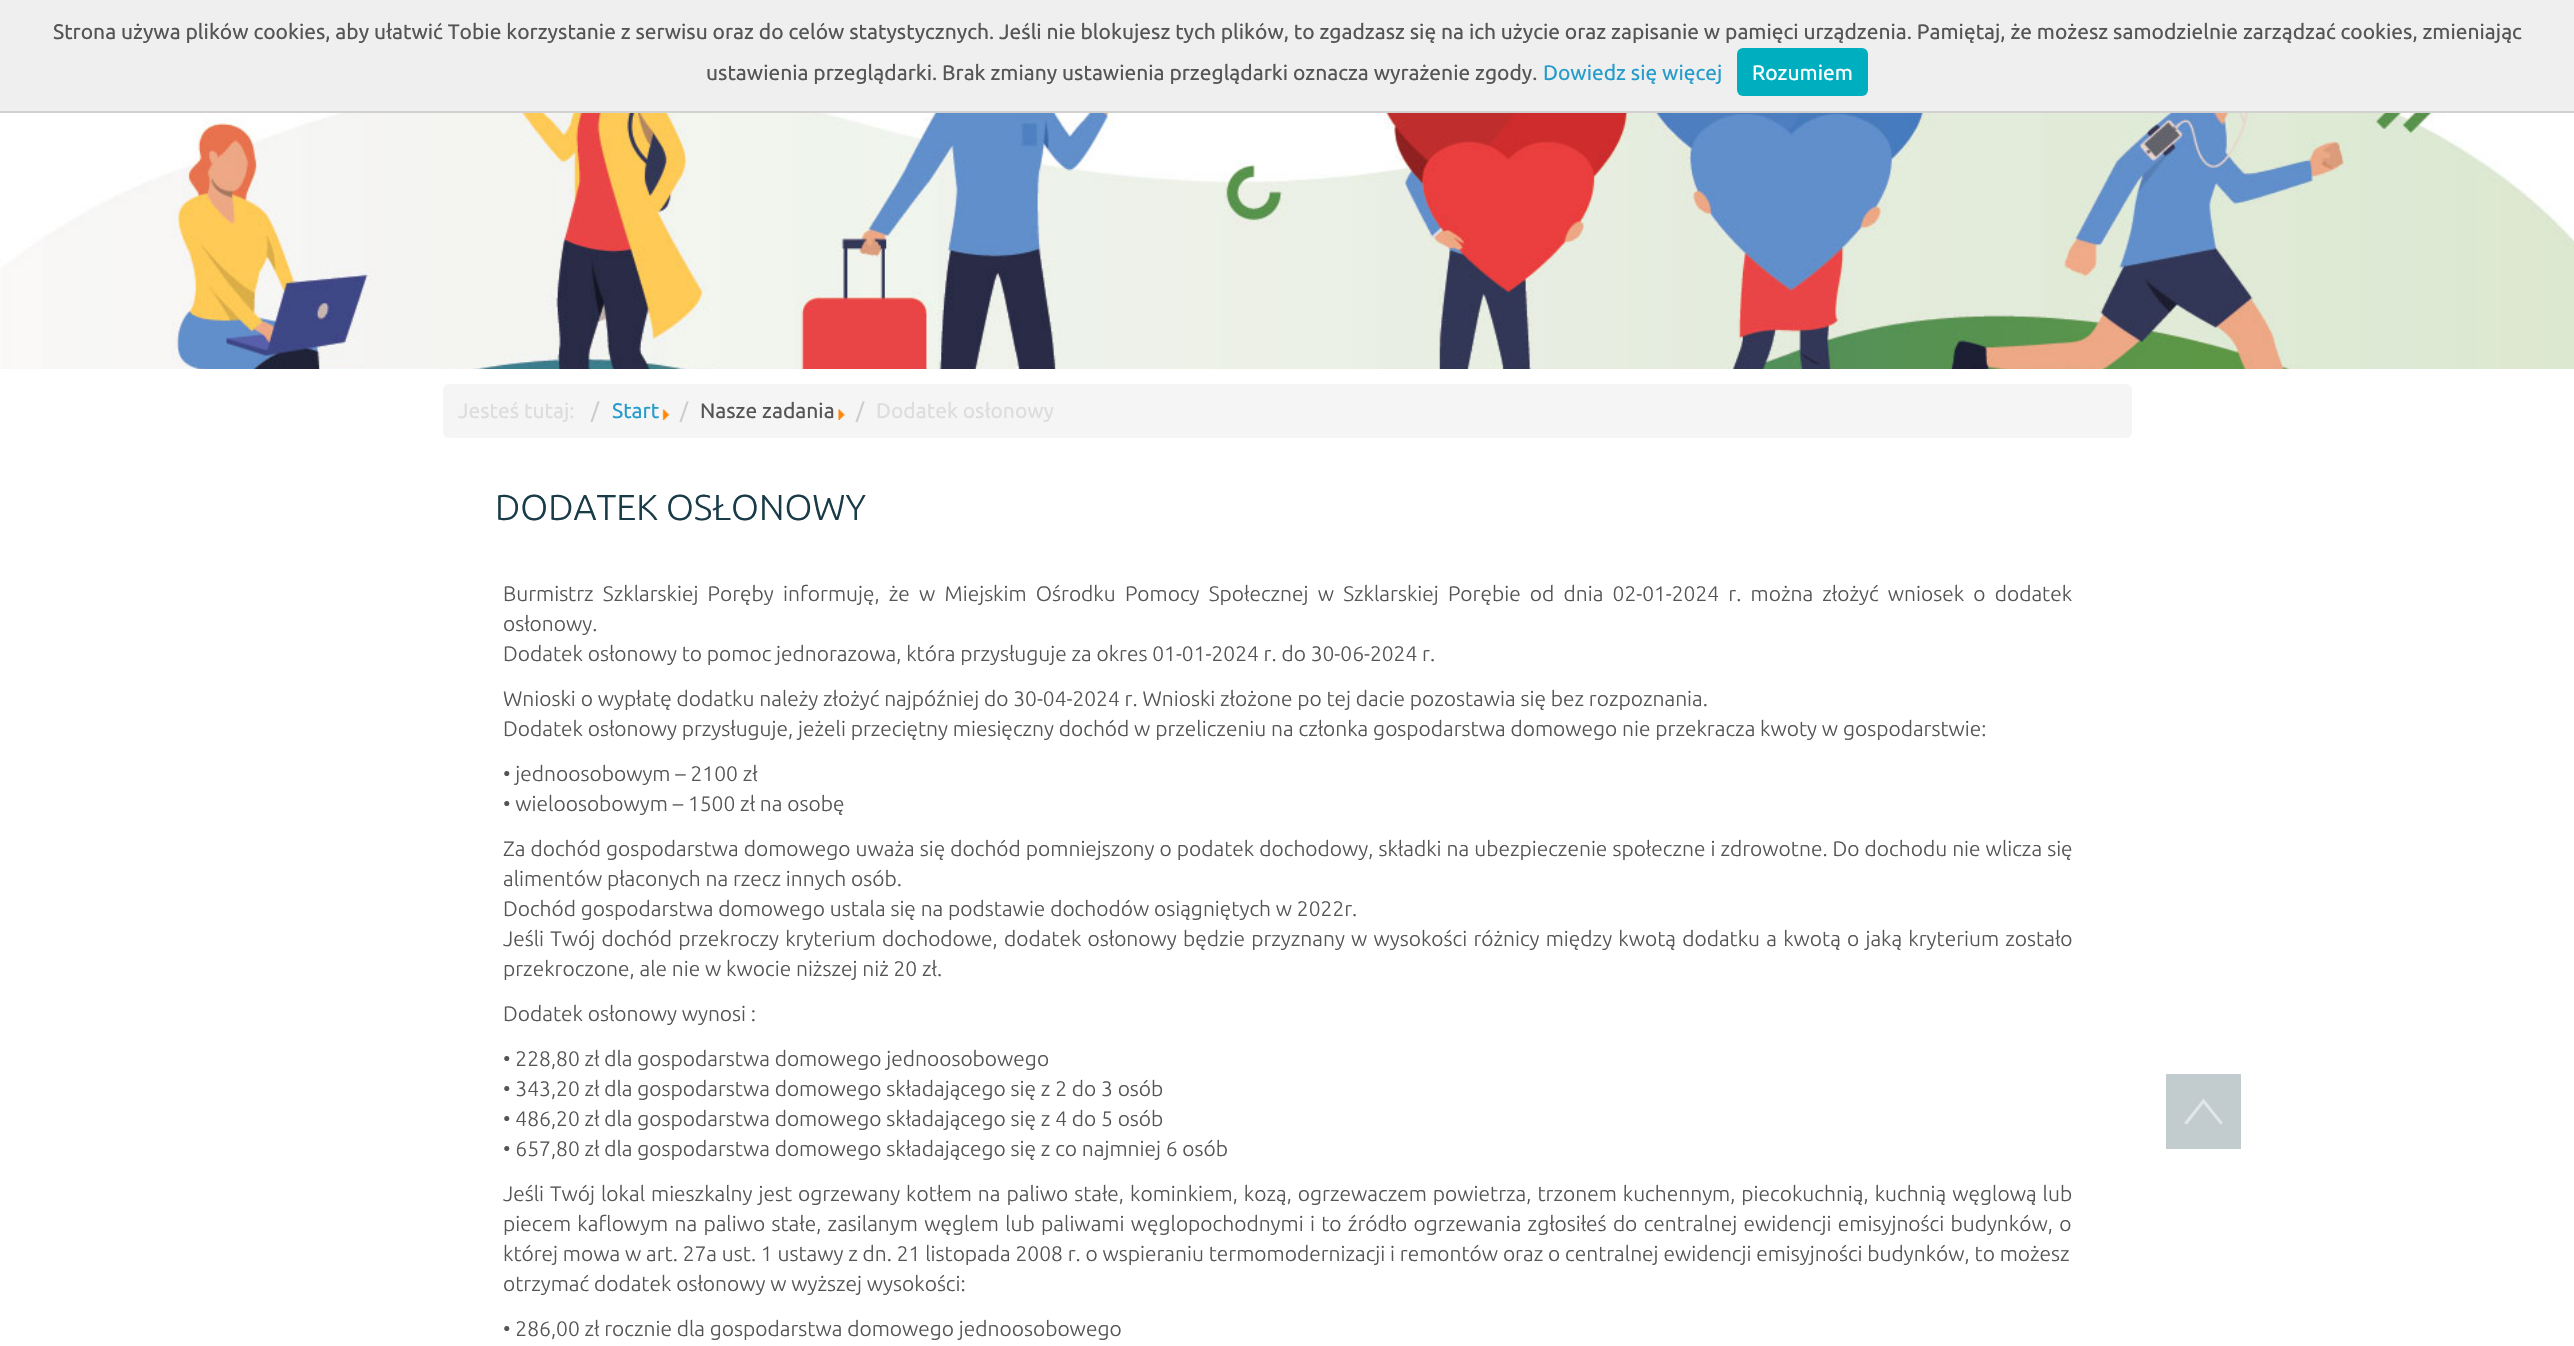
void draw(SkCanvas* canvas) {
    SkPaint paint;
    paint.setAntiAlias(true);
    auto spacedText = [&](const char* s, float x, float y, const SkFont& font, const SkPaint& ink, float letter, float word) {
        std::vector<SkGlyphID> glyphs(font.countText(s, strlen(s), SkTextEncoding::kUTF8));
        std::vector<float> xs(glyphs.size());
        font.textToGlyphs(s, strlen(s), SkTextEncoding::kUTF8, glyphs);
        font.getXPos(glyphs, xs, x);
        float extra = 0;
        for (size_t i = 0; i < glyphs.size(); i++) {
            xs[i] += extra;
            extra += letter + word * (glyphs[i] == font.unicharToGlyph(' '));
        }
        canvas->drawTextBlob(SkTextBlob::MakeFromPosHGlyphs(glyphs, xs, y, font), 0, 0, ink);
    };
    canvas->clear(0xFFFFFFFF);
    paint.setColor(0xFFEFEFEF);
    canvas->drawRect(SkRect::MakeXYWH(0, 0, 2574, 111), paint);
    paint.setColor(0xFFD3D0D0);
    canvas->drawRect(SkRect::MakeXYWH(0, 111, 2574, 2), paint);
    SkFont font1(fontMgr->matchFamilyStyle("Ubuntu", SkFontStyle::Normal()), 21);
    font1.setSubpixel(true);
    paint.setColor(0xFF555555);
    canvas->drawString("Strona używa plików cookies, aby ułatwić Tobie korzystanie z serwisu oraz do celów statystycznych. Jeśli nie blokujesz tych plików, to zgadzasz się na ich użycie oraz zapisanie w pamięci urządzenia. Pamiętaj, że możesz samodzielnie zarządzać cookies, zmieniając", 53, 39, font1, paint);
    canvas->drawString("ustawienia przeglądarki. Brak zmiany ustawienia przeglądarki oznacza wyrażenie zgody.", 706, 80, font1, paint);
    paint.setColor(0xFF269CCB);
    canvas->drawString("Dowiedz się więcej", 1543, 80, font1, paint);
    paint.setColor(0xFF00AFBF);
    canvas->drawRoundRect(SkRect::MakeXYWH(1737, 48, 131, 48), 6, 6, paint);
    paint.setColor(0xFFFFFFFF);
    canvas->drawString("Rozumiem", 1752, 80, font1, paint);
    canvas->drawImageRect(SkImages::DeferredFromEncodedData(SkData::MakeFromFileName("img1.png")), SkRect::MakeXYWH(0, 113, 2574, 256), SkSamplingOptions());
    paint.setColor(0xFFF5F5F5);
    canvas->drawRoundRect(SkRect::MakeXYWH(443, 384, 1689, 54), 6, 6, paint);
    paint.setColor(0xFFDDDDDD);
    canvas->drawString("Jesteś tutaj:", 458, 418, font1, paint);
    paint.setColor(0xFFCCCCCC);
    canvas->drawString("/", 591, 418, font1, paint);
    paint.setColor(0xFF269CCB);
    canvas->drawString("Start", 612, 418, font1, paint);
    canvas->drawImageRect(SkImages::DeferredFromEncodedData(SkData::MakeFromFileName("img2.png")), SkRect::MakeXYWH(662, 409, 8, 11), SkSamplingOptions());
    paint.setColor(0xFFCCCCCC);
    canvas->drawString("/", 680, 418, font1, paint);
    paint.setColor(0xFF555555);
    canvas->drawString("Nasze zadania", 700, 418, font1, paint);
    canvas->drawImageRect(SkImages::DeferredFromEncodedData(SkData::MakeFromFileName("img3.png")), SkRect::MakeXYWH(838, 409, 7, 11), SkSamplingOptions());
    paint.setColor(0xFFCCCCCC);
    canvas->drawString("/", 856, 418, font1, paint);
    paint.setColor(0xFFDDDDDD);
    canvas->drawString("Dodatek osłonowy", 876, 418, font1, paint);
    SkFont font2(fontMgr->matchFamilyStyle("Ubuntu", SkFontStyle(300, SkFontStyle::kNormal_Width, SkFontStyle::kUpright_Slant)), 36);
    font2.setSubpixel(true);
    paint.setColor(0xFF193B48);
    canvas->drawString("DODATEK OSŁONOWY", 495, 520, font2, paint);
    SkFont font3(fontMgr->matchFamilyStyle("Ubuntu", SkFontStyle(300, SkFontStyle::kNormal_Width, SkFontStyle::kUpright_Slant)), 21);
    font3.setSubpixel(true);
    paint.setColor(0xFF555555);
    spacedText("Burmistrz Szklarskiej Poręby informuję, że w Miejskim Ośrodku Pomocy Społecznej w Szklarskiej Porębie od dnia 02-01-2024 r. można złożyć wniosek o dodatek", 503, 601, font3, paint, 0, 4.4f);
    canvas->drawString("osłonowy.", 503, 631, font3, paint);
    canvas->drawString("Dodatek osłonowy to pomoc jednorazowa, która przysługuje za okres 01-01-2024 r. do 30-06-2024 r.", 503, 661, font3, paint);
    canvas->drawString("Wnioski o wypłatę dodatku należy złożyć najpóźniej do 30-04-2024 r. Wnioski złożone po tej dacie pozostawia się bez rozpoznania.", 503, 706, font3, paint);
    canvas->drawString("Dodatek osłonowy przysługuje, jeżeli przeciętny miesięczny dochód w przeliczeniu na członka gospodarstwa domowego nie przekracza kwoty w gospodarstwie:", 503, 736, font3, paint);
    canvas->drawString("• jednoosobowym – 2100 zł", 503, 781, font3, paint);
    canvas->drawString("• wieloosobowym – 1500 zł na osobę", 503, 811, font3, paint);
    spacedText("Za dochód gospodarstwa domowego uważa się dochód pomniejszony o podatek dochodowy, składki na ubezpieczenie społeczne i zdrowotne. Do dochodu nie wlicza się", 503, 856, font3, paint, 0, 0.25f);
    canvas->drawString("alimentów płaconych na rzecz innych osób.", 503, 886, font3, paint);
    canvas->drawString("Dochód gospodarstwa domowego ustala się na podstawie dochodów osiągniętych w 2022r.", 503, 916, font3, paint);
    spacedText("Jeśli Twój dochód przekroczy kryterium dochodowe, dodatek osłonowy będzie przyznany w wysokości różnicy między kwotą dodatku a kwotą o jaką kryterium zostało", 503, 946, font3, paint, 0, 1.4f);
    canvas->drawString("przekroczone, ale nie w kwocie niższej niż 20 zł.", 503, 976, font3, paint);
    canvas->drawString("Dodatek osłonowy wynosi :", 503, 1021, font3, paint);
    canvas->drawString("• 228,80 zł dla gospodarstwa domowego jednoosobowego", 503, 1066, font3, paint);
    canvas->drawString("• 343,20 zł dla gospodarstwa domowego składającego się z 2 do 3 osób", 503, 1096, font3, paint);
    canvas->drawString("• 486,20 zł dla gospodarstwa domowego składającego się z 4 do 5 osób", 503, 1126, font3, paint);
    canvas->drawString("• 657,80 zł dla gospodarstwa domowego składającego się z co najmniej 6 osób", 503, 1156, font3, paint);
    spacedText("Jeśli Twój lokal mieszkalny jest ogrzewany kotłem na paliwo stałe, kominkiem, kozą, ogrzewaczem powietrza, trzonem kuchennym, piecokuchnią, kuchnią węglową lub", 503, 1201, font3, paint, 0, 1.2f);
    spacedText("piecem kaflowym na paliwo stałe, zasilanym węglem lub paliwami węglopochodnymi i to źródło ogrzewania zgłosiłeś do centralnej ewidencji emisyjności budynków, o", 503, 1231, font3, paint, 0, 1.5f);
    canvas->drawString("której mowa w art. 27a ust. 1 ustawy z dn. 21 listopada 2008 r. o wspieraniu termomodernizacji i remontów oraz o centralnej ewidencji emisyjności budynków, to możesz", 503, 1261, font3, paint);
    canvas->drawString("otrzymać dodatek osłonowy w wyższej wysokości:", 503, 1291, font3, paint);
    canvas->drawString("• 286,00 zł rocznie dla gospodarstwa domowego jednoosobowego", 503, 1336, font3, paint);
    paint.setColor(0xFFC2CCCF);
    canvas->drawRect(SkRect::MakeXYWH(2166, 1074, 75, 75), paint);
    paint.setColor(0xFFE1E6E7);
    canvas->drawPath(SkPathBuilder().moveTo(2203.5f, 1098.5f).lineTo(2223, 1123).lineTo(2220.5f, 1124.5f).lineTo(2203.5f, 1103.5f).lineTo(2187, 1124.5f).lineTo(2184, 1123).close().detach(), paint);
}
